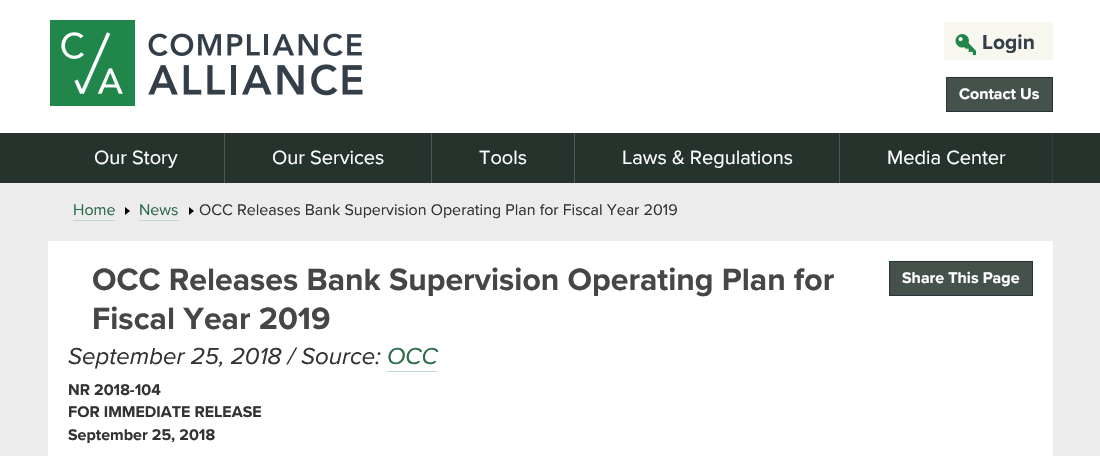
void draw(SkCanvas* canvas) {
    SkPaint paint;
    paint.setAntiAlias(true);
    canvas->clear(0xFFFFFFFF);
    canvas->drawImageRect(SkImages::DeferredFromEncodedData(SkData::MakeFromFileName("img1.png")), SkRect::MakeXYWH(50, 20, 313, 86), SkSamplingOptions());
    paint.setColor(0xFFF7F7F0);
    canvas->drawRect(SkRect::MakeXYWH(944, 22, 109, 38), paint);
    canvas->drawImageRect(SkImages::DeferredFromEncodedData(SkData::MakeFromFileName("img2.png")), SkRect::MakeXYWH(955, 34, 21, 22), SkSamplingOptions());
    SkFont font1(fontMgr->matchFamilyStyle("Proxima Nova", SkFontStyle::Bold()), 21);
    font1.setSubpixel(true);
    paint.setColor(0xFF333E48);
    canvas->drawString("Login", 982, 49, font1, paint);
    paint.setColor(0xFF45514B);
    canvas->drawRect(SkRect::MakeXYWH(946.5f, 77.5f, 106, 34), paint);
    paint.setStyle(SkPaint::kStroke_Style);
    paint.setStrokeWidth(1);
    paint.setColor(0xFF29323A);
    canvas->drawRect(SkRect::MakeXYWH(946.5f, 77.5f, 106, 34), paint);
    SkFont font2(fontMgr->matchFamilyStyle("Proxima Nova", SkFontStyle::Bold()), 16);
    font2.setSubpixel(true);
    paint.setStyle(SkPaint::kFill_Style);
    paint.setColor(0xFFFFFFFF);
    canvas->drawString("Contact Us", 959, 99, font2, paint);
    paint.setColor(0xFF25332C);
    canvas->drawRect(SkRect::MakeXYWH(0, 133, 1100, 50), paint);
    paint.setColor(0xFF333E48);
    canvas->drawRect(SkRect::MakeXYWH(1052, 133, 1, 50), paint);
    paint.setColor(0xFF555555);
    canvas->drawRect(SkRect::MakeXYWH(224, 133, 1, 50), paint);
    SkFont font3(fontMgr->matchFamilyStyle("Proxima Nova", SkFontStyle::Normal()), 20);
    font3.setSubpixel(true);
    paint.setColor(0xFFFFFFFF);
    canvas->drawString("Our Story", 94, 164, font3, paint);
    paint.setColor(0xFF555555);
    canvas->drawRect(SkRect::MakeXYWH(431, 133, 1, 50), paint);
    paint.setColor(0xFFFFFFFF);
    canvas->drawString("Our Services", 272, 164, font3, paint);
    paint.setColor(0xFF555555);
    canvas->drawRect(SkRect::MakeXYWH(574, 133, 1, 50), paint);
    paint.setColor(0xFFFFFFFF);
    canvas->drawString("Tools", 479, 164, font3, paint);
    paint.setColor(0xFF555555);
    canvas->drawRect(SkRect::MakeXYWH(839, 133, 1, 50), paint);
    paint.setColor(0xFFFFFFFF);
    canvas->drawString("Laws & Regulations", 622, 164, font3, paint);
    canvas->drawString("Media Center", 887, 164, font3, paint);
    paint.setColor(0xFFEBECEB);
    canvas->drawRect(SkRect::MakeXYWH(0, 183, 1100, 273), paint);
    SkFont font4(fontMgr->matchFamilyStyle("Proxima Nova", SkFontStyle::Normal()), 16);
    font4.setSubpixel(true);
    paint.setColor(0xFF2D6C4A);
    canvas->drawString("Home", 73, 215, font4, paint);
    paint.setColor(0xFFC1DAC6);
    canvas->drawRect(SkRect::MakeXYWH(73, 220, 42, 1), paint);
    paint.setColor(0xFF000000);
    canvas->drawPath(SkPathBuilder().moveTo(125, 215).lineTo(125, 207).lineTo(130, 211).close().detach(), paint);
    paint.setColor(0xFF2D6C4A);
    canvas->drawString("News", 139, 215, font4, paint);
    paint.setColor(0xFFC1DAC6);
    canvas->drawRect(SkRect::MakeXYWH(139, 220, 40, 1), paint);
    paint.setColor(0xFF000000);
    canvas->drawPath(SkPathBuilder().moveTo(189, 215).lineTo(189, 207).lineTo(194, 211).close().detach(), paint);
    paint.setColor(0xFF333333);
    canvas->drawString("OCC Releases Bank Supervision Operating Plan for Fiscal Year 2019", 199, 215, font4, paint);
    paint.setColor(0xFFFFFFFF);
    canvas->drawRect(SkRect::MakeXYWH(48, 241, 1005, 215), paint);
    SkFont font5(fontMgr->matchFamilyStyle("Proxima Nova", SkFontStyle::Bold()), 32);
    font5.setSubpixel(true);
    paint.setColor(0xFF464646);
    canvas->drawString("OCC Releases Bank Supervision Operating Plan for", 92, 290, font5, paint);
    canvas->drawString("Fiscal Year 2019", 92, 329, font5, paint);
    paint.setColor(0xFF45514B);
    canvas->drawRect(SkRect::MakeXYWH(889.5f, 261.5f, 143, 34), paint);
    paint.setStyle(SkPaint::kStroke_Style);
    paint.setColor(0xFF29323A);
    canvas->drawRect(SkRect::MakeXYWH(889.5f, 261.5f, 143, 34), paint);
    paint.setStyle(SkPaint::kFill_Style);
    paint.setColor(0xFFFFFFFF);
    canvas->drawString("Share This Page", 902, 283, font2, paint);
    SkFont font6(fontMgr->matchFamilyStyle("Proxima Nova", SkFontStyle::Italic()), 24);
    font6.setSubpixel(true);
    paint.setColor(0xFF333333);
    canvas->drawString("September 25, 2018 / Source:", 68, 364, font6, paint);
    paint.setColor(0xFF2D6C4A);
    canvas->drawString("OCC", 387, 364, font6, paint);
    paint.setColor(0xFFC1DAC6);
    canvas->drawRect(SkRect::MakeXYWH(387, 371, 50, 1), paint);
    paint.setColor(0xFF333333);
    canvas->drawString("NR 2018-104", 68, 395, font2, paint);
    canvas->drawString("FOR IMMEDIATE RELEASE", 68, 417, font2, paint);
    canvas->drawString("September 25, 2018", 68, 440, font2, paint);
}
